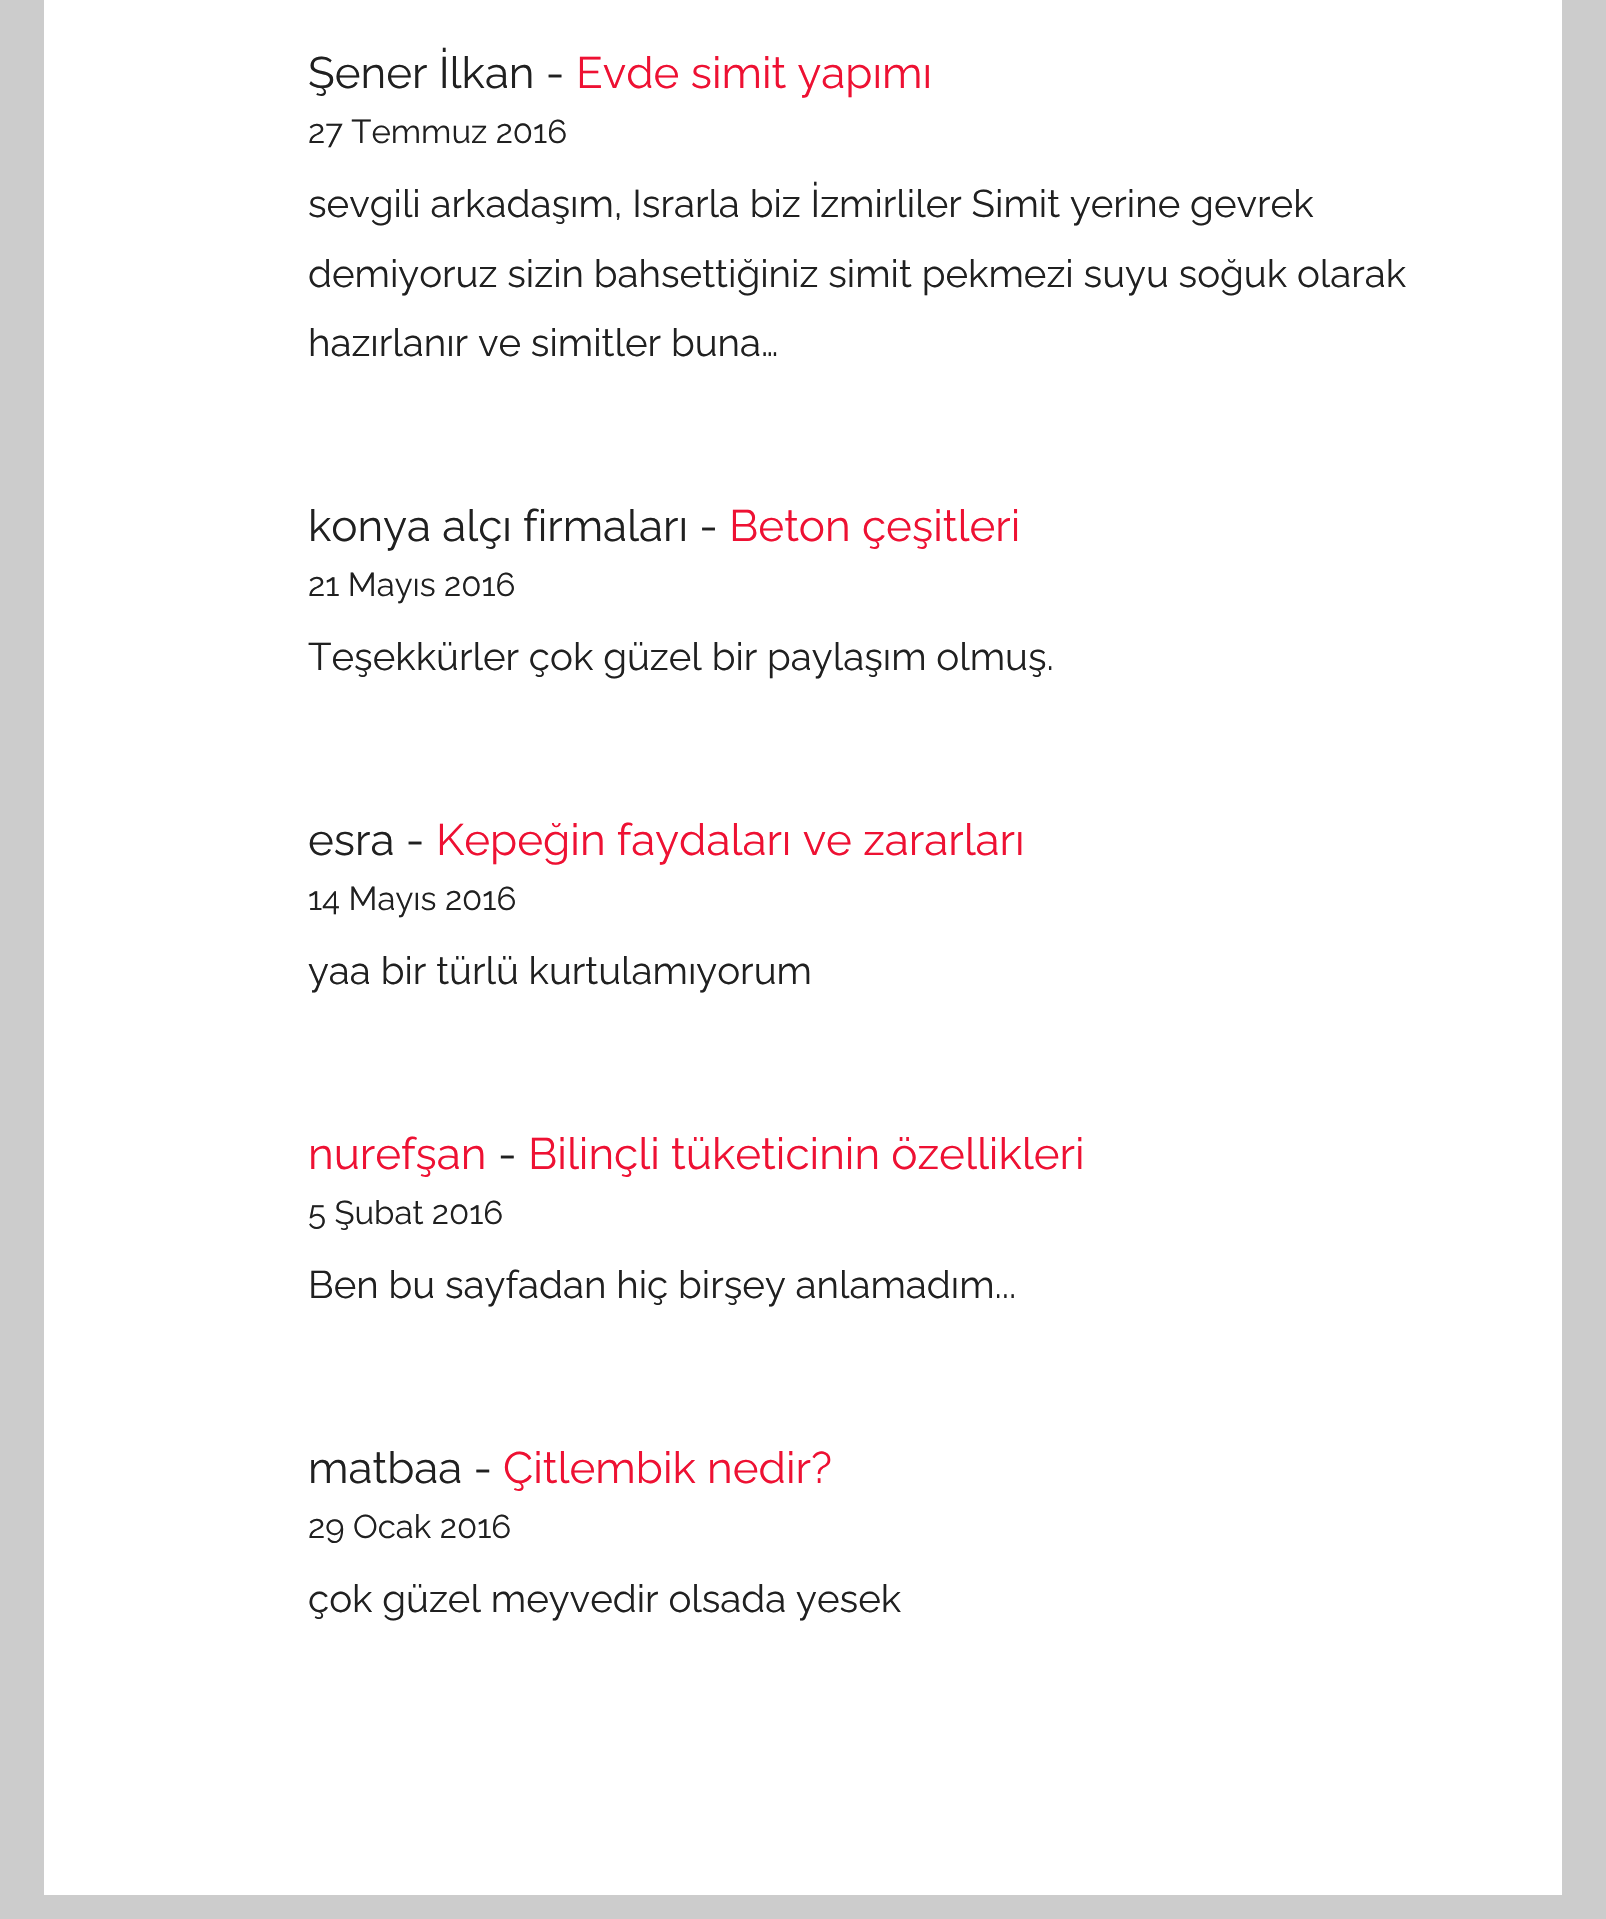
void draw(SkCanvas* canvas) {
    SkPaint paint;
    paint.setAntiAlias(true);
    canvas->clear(0xFFCCCCCC);
    paint.setColor(0xFFFFFFFF);
    canvas->drawRect(SkRect::MakeXYWH(44, 0, 1518, 1895), paint);
    SkFont font1(fontMgr->matchFamilyStyle("Raleway", SkFontStyle(100, SkFontStyle::kNormal_Width, SkFontStyle::kUpright_Slant)), 44);
    font1.setSubpixel(true);
    paint.setColor(0xFF202020);
    canvas->drawString("Şener İlkan -", 308, 88, font1, paint);
    paint.setColor(0xFFEE1133);
    canvas->drawString("Evde simit yapımı", 576, 88, font1, paint);
    SkFont font2(fontMgr->matchFamilyStyle("Raleway", SkFontStyle(100, SkFontStyle::kNormal_Width, SkFontStyle::kUpright_Slant)), 33);
    font2.setSubpixel(true);
    paint.setColor(0xFF202020);
    canvas->drawString("27 Temmuz 2016", 308, 143, font2, paint);
    SkFont font3(fontMgr->matchFamilyStyle("Raleway", SkFontStyle(100, SkFontStyle::kNormal_Width, SkFontStyle::kUpright_Slant)), 38.5f);
    font3.setSubpixel(true);
    canvas->drawString("sevgili arkadaşım, Israrla biz İzmirliler Simit yerine gevrek", 308, 217, font3, paint);
    canvas->drawString("demiyoruz sizin bahsettiğiniz simit pekmezi suyu soğuk olarak", 308, 287, font3, paint);
    canvas->drawString("hazırlanır ve simitler buna…", 308, 356, font3, paint);
    canvas->drawString("konya alçı firmaları -", 308, 541, font1, paint);
    paint.setColor(0xFFEE1133);
    canvas->drawString("Beton çeşitleri", 729, 541, font1, paint);
    paint.setColor(0xFF202020);
    canvas->drawString("21 Mayıs 2016", 308, 596, font2, paint);
    canvas->drawString("Teşekkürler çok güzel bir paylaşım olmuş.", 308, 670, font3, paint);
    canvas->drawString("esra -", 308, 855, font1, paint);
    paint.setColor(0xFFEE1133);
    canvas->drawString("Kepeğin faydaları ve zararları", 436, 855, font1, paint);
    paint.setColor(0xFF202020);
    canvas->drawString("14 Mayıs 2016", 308, 910, font2, paint);
    canvas->drawString("yaa bir türlü kurtulamıyorum", 308, 984, font3, paint);
    paint.setColor(0xFFEE1133);
    canvas->drawString("nurefşan", 308, 1169, font1, paint);
    paint.setColor(0xFF202020);
    canvas->drawString("-", 498, 1169, font1, paint);
    paint.setColor(0xFFEE1133);
    canvas->drawString("Bilinçli tüketicinin özellikleri", 528, 1169, font1, paint);
    paint.setColor(0xFF202020);
    canvas->drawString("5 Şubat 2016", 308, 1224, font2, paint);
    canvas->drawString("Ben bu sayfadan hiç birşey anlamadım...", 308, 1298, font3, paint);
    canvas->drawString("matbaa -", 308, 1483, font1, paint);
    paint.setColor(0xFFEE1133);
    canvas->drawString("Çitlembik nedir?", 503, 1483, font1, paint);
    paint.setColor(0xFF202020);
    canvas->drawString("29 Ocak 2016", 308, 1538, font2, paint);
    canvas->drawString("çok güzel meyvedir olsada yesek", 308, 1612, font3, paint);
}
